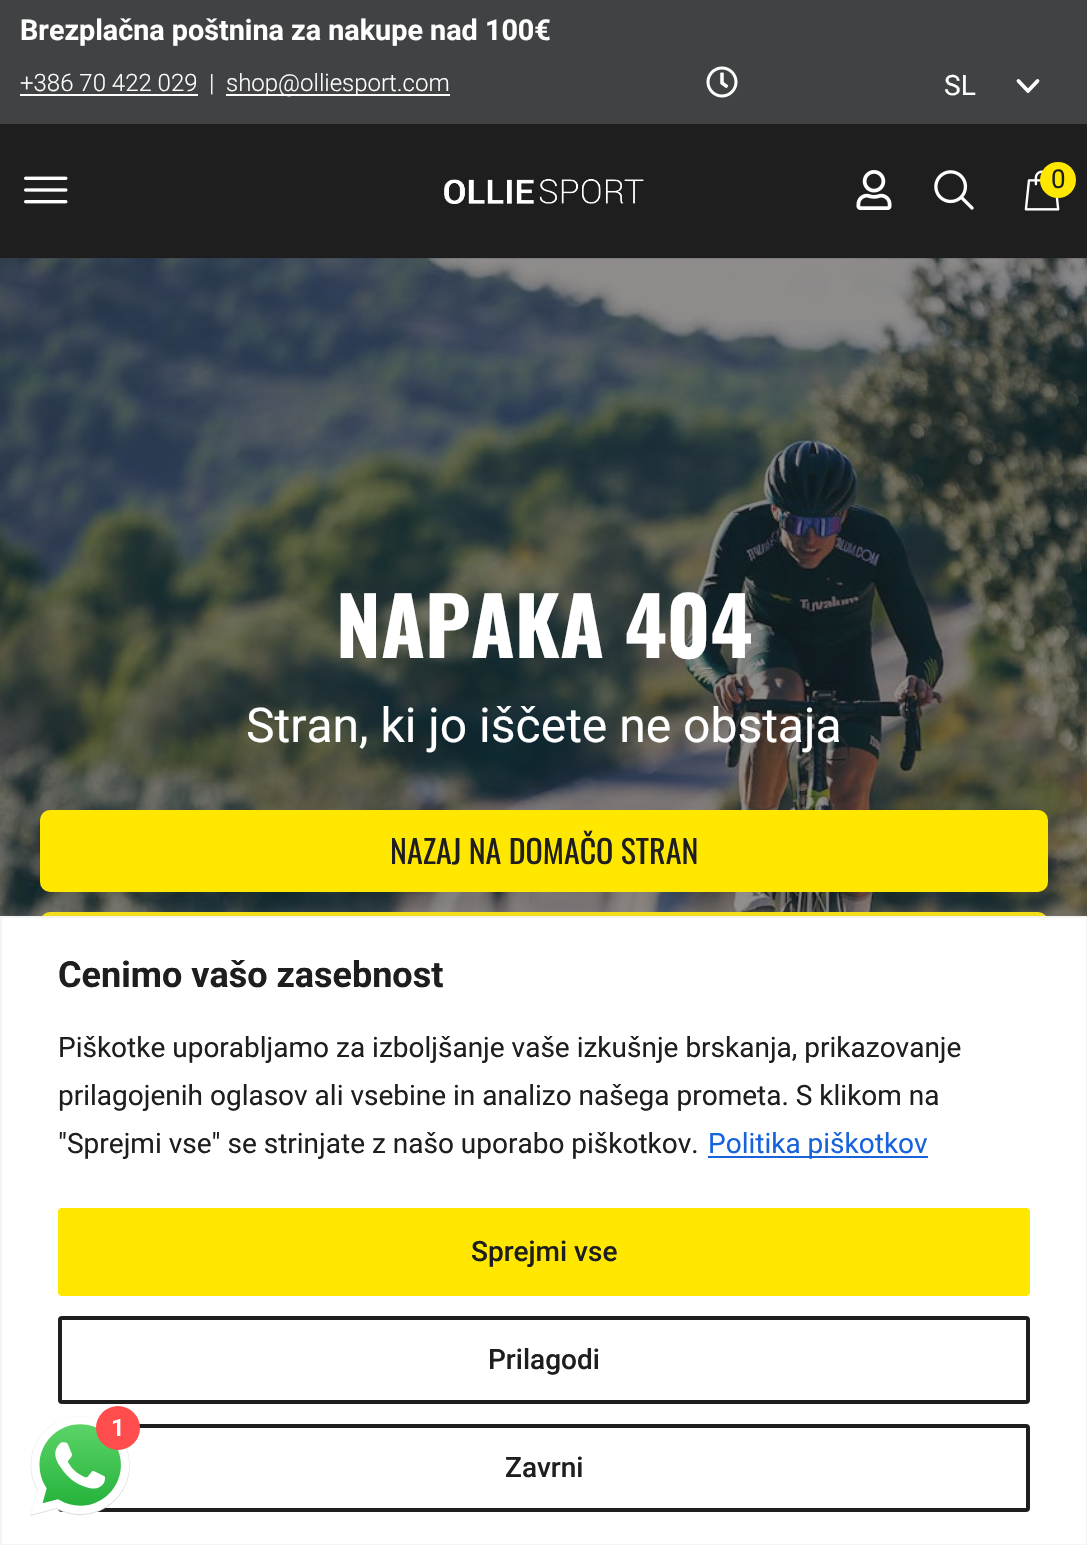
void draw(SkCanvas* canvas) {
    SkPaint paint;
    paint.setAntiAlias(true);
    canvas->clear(0xFF1E1E1E);
    paint.setColor(0xFF404243);
    canvas->drawRect(SkRect::MakeXYWH(0, 0, 1087, 124), paint);
    SkFont font1(fontMgr->matchFamilyStyle("Roboto", SkFontStyle::Bold()), 28.75f);
    font1.setSubpixel(true);
    paint.setColor(0xFFFFFFFF);
    canvas->drawString("Brezplačna poštnina za nakupe nad 100€", 20, 40, font1, paint);
    SkFont font2(fontMgr->matchFamilyStyle("Roboto", SkFontStyle(300, SkFontStyle::kNormal_Width, SkFontStyle::kUpright_Slant)), 24);
    font2.setSubpixel(true);
    canvas->drawString("+386 70 422 029", 20, 91, font2, paint);
    canvas->drawRect(SkRect::MakeXYWH(20, 94, 178, 2), paint);
    canvas->drawString("|", 209, 91, font2, paint);
    canvas->drawRect(SkRect::MakeXYWH(226, 94, 224, 2), paint);
    canvas->drawString("shop@olliesport.com", 226, 91, font2, paint);
    canvas->drawImageRect(SkImages::DeferredFromEncodedData(SkData::MakeFromFileName("img1.png")), SkRect::MakeXYWH(706, 66, 32, 32), SkSamplingOptions());
    SkFont font3(fontMgr->matchFamilyStyle("Roboto", SkFontStyle::Normal()), 28);
    font3.setSubpixel(true);
    canvas->drawString("SL", 944, 95, font3, paint);
    paint.setStyle(SkPaint::kStroke_Style);
    paint.setStrokeWidth(3.8f);
    paint.setStrokeCap(SkPaint::kRound_Cap);
    paint.setStrokeJoin(SkPaint::kRound_Join);
    canvas->drawPath(SkPathBuilder().moveTo(1018.5f, 81).lineTo(1028, 91).lineTo(1037.5f, 81).detach(), paint);
    canvas->drawImageRect(SkImages::DeferredFromEncodedData(SkData::MakeFromFileName("img2.png")), SkRect::MakeXYWH(24, 176, 44, 28), SkSamplingOptions());
    canvas->drawImageRect(SkImages::DeferredFromEncodedData(SkData::MakeFromFileName("img3.png")), SkRect::MakeXYWH(444, 179, 200, 25), SkSamplingOptions());
    canvas->drawImageRect(SkImages::DeferredFromEncodedData(SkData::MakeFromFileName("img4.png")), SkRect::MakeXYWH(856, 170, 36, 40), SkSamplingOptions());
    canvas->drawImageRect(SkImages::DeferredFromEncodedData(SkData::MakeFromFileName("img5.png")), SkRect::MakeXYWH(934, 170, 40, 40), SkSamplingOptions());
    canvas->drawImageRect(SkImages::DeferredFromEncodedData(SkData::MakeFromFileName("img6.png")), SkRect::MakeXYWH(1024, 170, 36, 41), SkSamplingOptions());
    paint.setStyle(SkPaint::kFill_Style);
    paint.setColor(0xFFFFE700);
    canvas->drawCircle(1058, 180, 18, paint);
    SkFont font4(fontMgr->matchFamilyStyle("Roboto", SkFontStyle::Normal()), 26);
    font4.setSubpixel(true);
    paint.setColor(0xFF1E1E1E);
    canvas->drawString("0", 1051, 188, font4, paint);
    canvas->drawImageRect(SkImages::DeferredFromEncodedData(SkData::MakeFromFileName("img7.png")), SkRect::MakeXYWH(0, 258, 1087, 658), SkSamplingOptions());
    SkFont font5(fontMgr->matchFamilyStyle("Oswald", SkFontStyle::Bold()), 80);
    font5.setSubpixel(true);
    paint.setColor(0xFFFFFFFF);
    canvas->drawString("NAPAKA 404", 336, 658, font5, paint);
    SkFont font6(fontMgr->matchFamilyStyle("Roboto", SkFontStyle::Normal()), 48);
    font6.setSubpixel(true);
    canvas->drawString("Stran, ki jo iščete ne obstaja", 246, 742, font6, paint);
    paint.setColor(0xFFFFE700);
    canvas->drawRoundRect(SkRect::MakeXYWH(40, 810, 1008, 82), 10, 10, paint);
    SkFont font7(fontMgr->matchFamilyStyle("Oswald", SkFontStyle::Normal()), 32);
    font7.setSubpixel(true);
    paint.setColor(0xFF1E1E1E);
    canvas->drawString("NAZAJ NA DOMAČO STRAN", 390, 864, font7, paint);
    paint.setColor(0xFFFFE700);
    canvas->drawRoundRect(SkRect::MakeXYWH(40, 912, 1008, 82), 10, 10, paint);
    paint.setColor(0x4DACABAB);
    paint.setMaskFilter(SkMaskFilter::MakeBlur(kNormal_SkBlurStyle, 10));
    canvas->drawRect(SkRect::MakeXYWH(0, 914, 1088, 630), paint);
    paint.setMaskFilter(nullptr);
    paint.setColor(0xFFFFFFFF);
    canvas->drawRect(SkRect::MakeXYWH(1, 917, 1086, 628), paint);
    paint.setStyle(SkPaint::kStroke_Style);
    paint.setStrokeWidth(2);
    paint.setStrokeCap(SkPaint::kButt_Cap);
    paint.setStrokeJoin(SkPaint::kMiter_Join);
    paint.setColor(0xFFF4F4F4);
    canvas->drawRect(SkRect::MakeXYWH(1, 917, 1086, 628), paint);
    SkFont font8(fontMgr->matchFamilyStyle("Roboto", SkFontStyle::Bold()), 36);
    font8.setSubpixel(true);
    paint.setStyle(SkPaint::kFill_Style);
    paint.setColor(0xFF1E1E1E);
    canvas->drawString("Cenimo vašo zasebnost", 58, 987, font8, paint);
    canvas->drawString("Piškotke uporabljamo za izboljšanje vaše izkušnje brskanja, prikazovanje", 58, 1057, font3, paint);
    canvas->drawString("prilagojenih oglasov ali vsebine in analizo našega prometa. S klikom na", 58, 1105, font3, paint);
    canvas->drawString("\"Sprejmi vse\" se strinjate z našo uporabo piškotkov.", 58, 1153, font3, paint);
    paint.setColor(0xFF1863DC);
    canvas->drawRect(SkRect::MakeXYWH(708, 1156, 220, 2), paint);
    canvas->drawString("Politika piškotkov", 708, 1153, font3, paint);
    paint.setColor(0xFFFFE700);
    canvas->drawRoundRect(SkRect::MakeXYWH(60, 1210, 968, 84), 2, 2, paint);
    paint.setStyle(SkPaint::kStroke_Style);
    paint.setStrokeWidth(4);
    canvas->drawRoundRect(SkRect::MakeXYWH(60, 1210, 968, 84), 2, 2, paint);
    SkFont font9(fontMgr->matchFamilyStyle("Roboto", SkFontStyle(500, SkFontStyle::kNormal_Width, SkFontStyle::kUpright_Slant)), 28);
    font9.setSubpixel(true);
    paint.setStyle(SkPaint::kFill_Style);
    paint.setColor(0xFF1E1E1E);
    canvas->drawString("Sprejmi vse", 471, 1261, font9, paint);
    paint.setStyle(SkPaint::kStroke_Style);
    canvas->drawRoundRect(SkRect::MakeXYWH(60, 1318, 968, 84), 2, 2, paint);
    paint.setStyle(SkPaint::kFill_Style);
    canvas->drawString("Prilagodi", 488, 1369, font9, paint);
    paint.setStyle(SkPaint::kStroke_Style);
    canvas->drawRoundRect(SkRect::MakeXYWH(60, 1426, 968, 84), 2, 2, paint);
    paint.setStyle(SkPaint::kFill_Style);
    canvas->drawString("Zavrni", 505, 1477, font9, paint);
    canvas->drawImageRect(SkImages::DeferredFromEncodedData(SkData::MakeFromFileName("img8.png")), SkRect::MakeXYWH(30, 1416, 100, 100), SkSamplingOptions());
    paint.setColor(0xFFFF4C4C);
    canvas->drawCircle(118, 1428, 22, paint);
    SkFont font10(fontMgr->matchFamilyStyle("Roboto", SkFontStyle(600, SkFontStyle::kNormal_Width, SkFontStyle::kUpright_Slant)), 24);
    font10.setSubpixel(true);
    paint.setColor(0xFFFFFFFF);
    canvas->drawString("1", 111, 1436, font10, paint);
}
